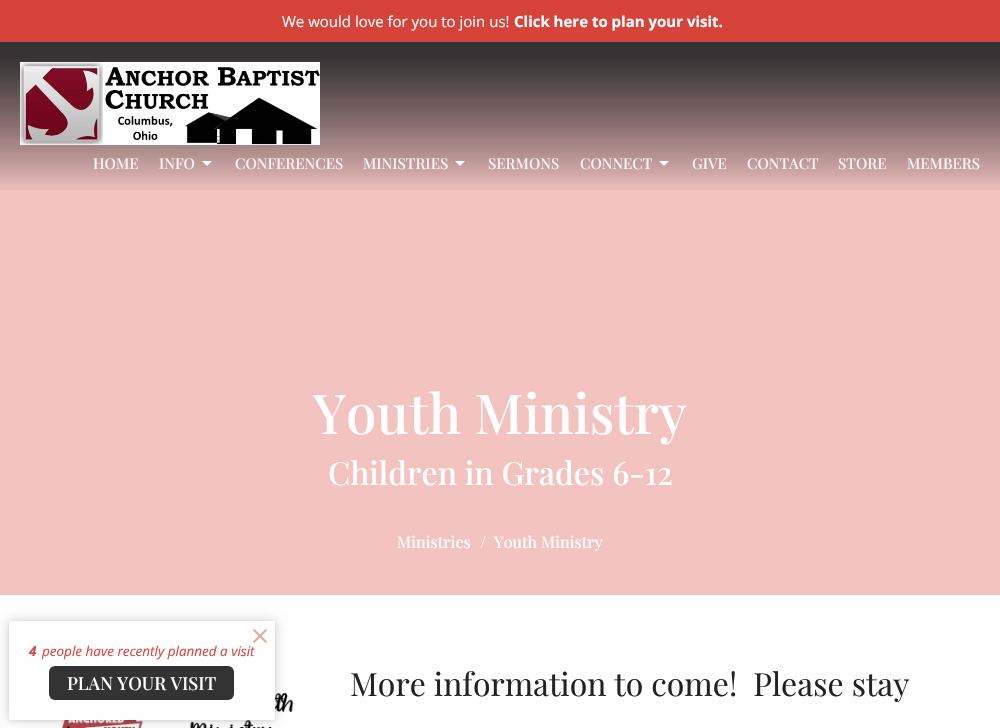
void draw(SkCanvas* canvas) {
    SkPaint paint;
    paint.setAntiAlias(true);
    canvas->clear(0xFFFFFFFF);
    paint.setColor(0xFFD84339);
    canvas->drawRect(SkRect::MakeXYWH(0, 0, 1000, 42), paint);
    SkFont font1(fontMgr->matchFamilyStyle("Open Sans", SkFontStyle::Normal()), 15);
    font1.setSubpixel(true);
    paint.setColor(0xFFFFFFFF);
    canvas->drawString("We would love for you to join us!", 282, 27, font1, paint);
    SkFont font2(fontMgr->matchFamilyStyle("Open Sans", SkFontStyle::Bold()), 15);
    font2.setSubpixel(true);
    canvas->drawString("Click here to plan your visit.", 514, 27, font2, paint);
    paint.setColor(0xFFF3C3BF);
    canvas->drawRect(SkRect::MakeXYWH(0, 59, 1000, 536), paint);
    {
        const SkColor colors[] = {0x00373234, 0xFF373234, 0xFF373234};
        const float stops[] = {0.05f, 0.9f, 1};
        const SkPoint ends[] = {{500, 202}, {500, 42}};
        paint.setShader(SkGradientShader::MakeLinear(ends, colors, stops, 3, SkTileMode::kClamp));
        paint.setAlpha(255);
    }
    canvas->drawRect(SkRect::MakeXYWH(0, 42, 1000, 149), paint);
    {
        const SkColor colors[] = {0x00373234, 0x3D373234, 0x3D373234};
        const float stops[] = {0.05f, 0.9f, 1};
        const SkPoint ends[] = {{500, 202}, {500, 42}};
        paint.setShader(SkGradientShader::MakeLinear(ends, colors, stops, 3, SkTileMode::kClamp));
        paint.setAlpha(255);
    }
    canvas->drawRect(SkRect::MakeXYWH(0, 65, 1000, 117), paint);
    canvas->drawImageRect(SkImages::DeferredFromEncodedData(SkData::MakeFromFileName("img1.png")), SkRect::MakeXYWH(20, 62, 300, 83), SkSamplingOptions());
    SkFont font3(fontMgr->matchFamilyStyle("Playfair Display", SkFontStyle(500, SkFontStyle::kNormal_Width, SkFontStyle::kUpright_Slant)), 15);
    font3.setSubpixel(true);
    paint.setShader(nullptr);
    paint.setColor(0xFFF9F5F5);
    canvas->drawString("HOME", 93, 169, font3, paint);
    canvas->drawString("INFO", 159, 169, font3, paint);
    paint.setColor(0xFFFFFFFF);
    canvas->drawPath(SkPathBuilder().moveTo(202, 161).lineTo(207, 166).lineTo(212, 161).close().detach(), paint);
    paint.setColor(0xFFF9F5F5);
    canvas->drawString("CONFERENCES", 235, 169, font3, paint);
    canvas->drawString("MINISTRIES", 363, 169, font3, paint);
    paint.setColor(0xFFFFFFFF);
    canvas->drawPath(SkPathBuilder().moveTo(455, 161).lineTo(460, 166).lineTo(465, 161).close().detach(), paint);
    paint.setColor(0xFFF9F5F5);
    canvas->drawString("SERMONS", 488, 169, font3, paint);
    canvas->drawString("CONNECT", 580, 169, font3, paint);
    paint.setColor(0xFFFFFFFF);
    canvas->drawPath(SkPathBuilder().moveTo(659, 161).lineTo(664, 166).lineTo(669, 161).close().detach(), paint);
    paint.setColor(0xFFF9F5F5);
    canvas->drawString("GIVE", 692, 169, font3, paint);
    canvas->drawString("CONTACT", 747, 169, font3, paint);
    canvas->drawString("STORE", 838, 169, font3, paint);
    canvas->drawString("MEMBERS", 907, 169, font3, paint);
    SkFont font4(fontMgr->matchFamilyStyle("Playfair Display", SkFontStyle(500, SkFontStyle::kNormal_Width, SkFontStyle::kUpright_Slant)), 55);
    font4.setSubpixel(true);
    paint.setColor(0xFFFFFFFF);
    canvas->drawString("Youth Ministry", 313, 434, font4, paint);
    SkFont font5(fontMgr->matchFamilyStyle("Playfair Display", SkFontStyle(500, SkFontStyle::kNormal_Width, SkFontStyle::kUpright_Slant)), 32);
    font5.setSubpixel(true);
    canvas->drawString("Children in Grades 6-12", 328, 485, font5, paint);
    SkFont font6(fontMgr->matchFamilyStyle("Playfair Display", SkFontStyle(500, SkFontStyle::kNormal_Width, SkFontStyle::kUpright_Slant)), 16);
    font6.setSubpixel(true);
    canvas->drawString("Ministries", 397, 548, font6, paint);
    canvas->drawString("/", 480, 548, font6, paint);
    canvas->drawString("Youth Ministry", 494, 548, font6, paint);
    canvas->drawImageRect(SkImages::DeferredFromEncodedData(SkData::MakeFromFileName("img3.png")), SkRect::MakeXYWH(59, 676, 235, 52), SkSamplingOptions());
    paint.setColor(0x0D000000);
    paint.setMaskFilter(SkMaskFilter::MakeBlur(kNormal_SkBlurStyle, 1));
    canvas->drawRect(SkRect::MakeXYWH(9, 622, 266, 99), paint);
    paint.setMaskFilter(nullptr);
    paint.setColor(0x33000000);
    paint.setMaskFilter(SkMaskFilter::MakeBlur(kNormal_SkBlurStyle, 5.5f));
    canvas->drawRect(SkRect::MakeXYWH(9, 621, 266, 99), paint);
    paint.setMaskFilter(nullptr);
    paint.setColor(0xFFFFFFFF);
    canvas->drawRect(SkRect::MakeXYWH(9, 621, 266, 99), paint);
    canvas->drawImageRect(SkImages::DeferredFromEncodedData(SkData::MakeFromFileName("img2.png")), SkRect::MakeXYWH(253, 629, 14, 14), SkSamplingOptions());
    SkFont font7(fontMgr->matchFamilyStyle("Open Sans", SkFontStyle::BoldItalic()), 13.5f);
    font7.setSubpixel(true);
    paint.setColor(0xFFD84339);
    canvas->drawString("4", 29, 656, font7, paint);
    SkFont font8(fontMgr->matchFamilyStyle("Open Sans", SkFontStyle::Italic()), 13.5f);
    font8.setSubpixel(true);
    canvas->drawString("people have recently planned a visit", 42, 656, font8, paint);
    paint.setColor(0xFF333333);
    canvas->drawRoundRect(SkRect::MakeXYWH(49, 666, 185, 34), 6, 6, paint);
    SkFont font9(fontMgr->matchFamilyStyle("Playfair Display", SkFontStyle(500, SkFontStyle::kNormal_Width, SkFontStyle::kUpright_Slant)), 18);
    font9.setSubpixel(true);
    paint.setColor(0xFFFFFFFF);
    canvas->drawString("PLAN YOUR VISIT", 67, 690, font9, paint);
    SkFont font10(fontMgr->matchFamilyStyle("Playfair Display", SkFontStyle::Normal()), 32);
    font10.setSubpixel(true);
    paint.setColor(0xFF222222);
    canvas->drawString("More information to come!  Please stay", 350, 696, font10, paint);
}
